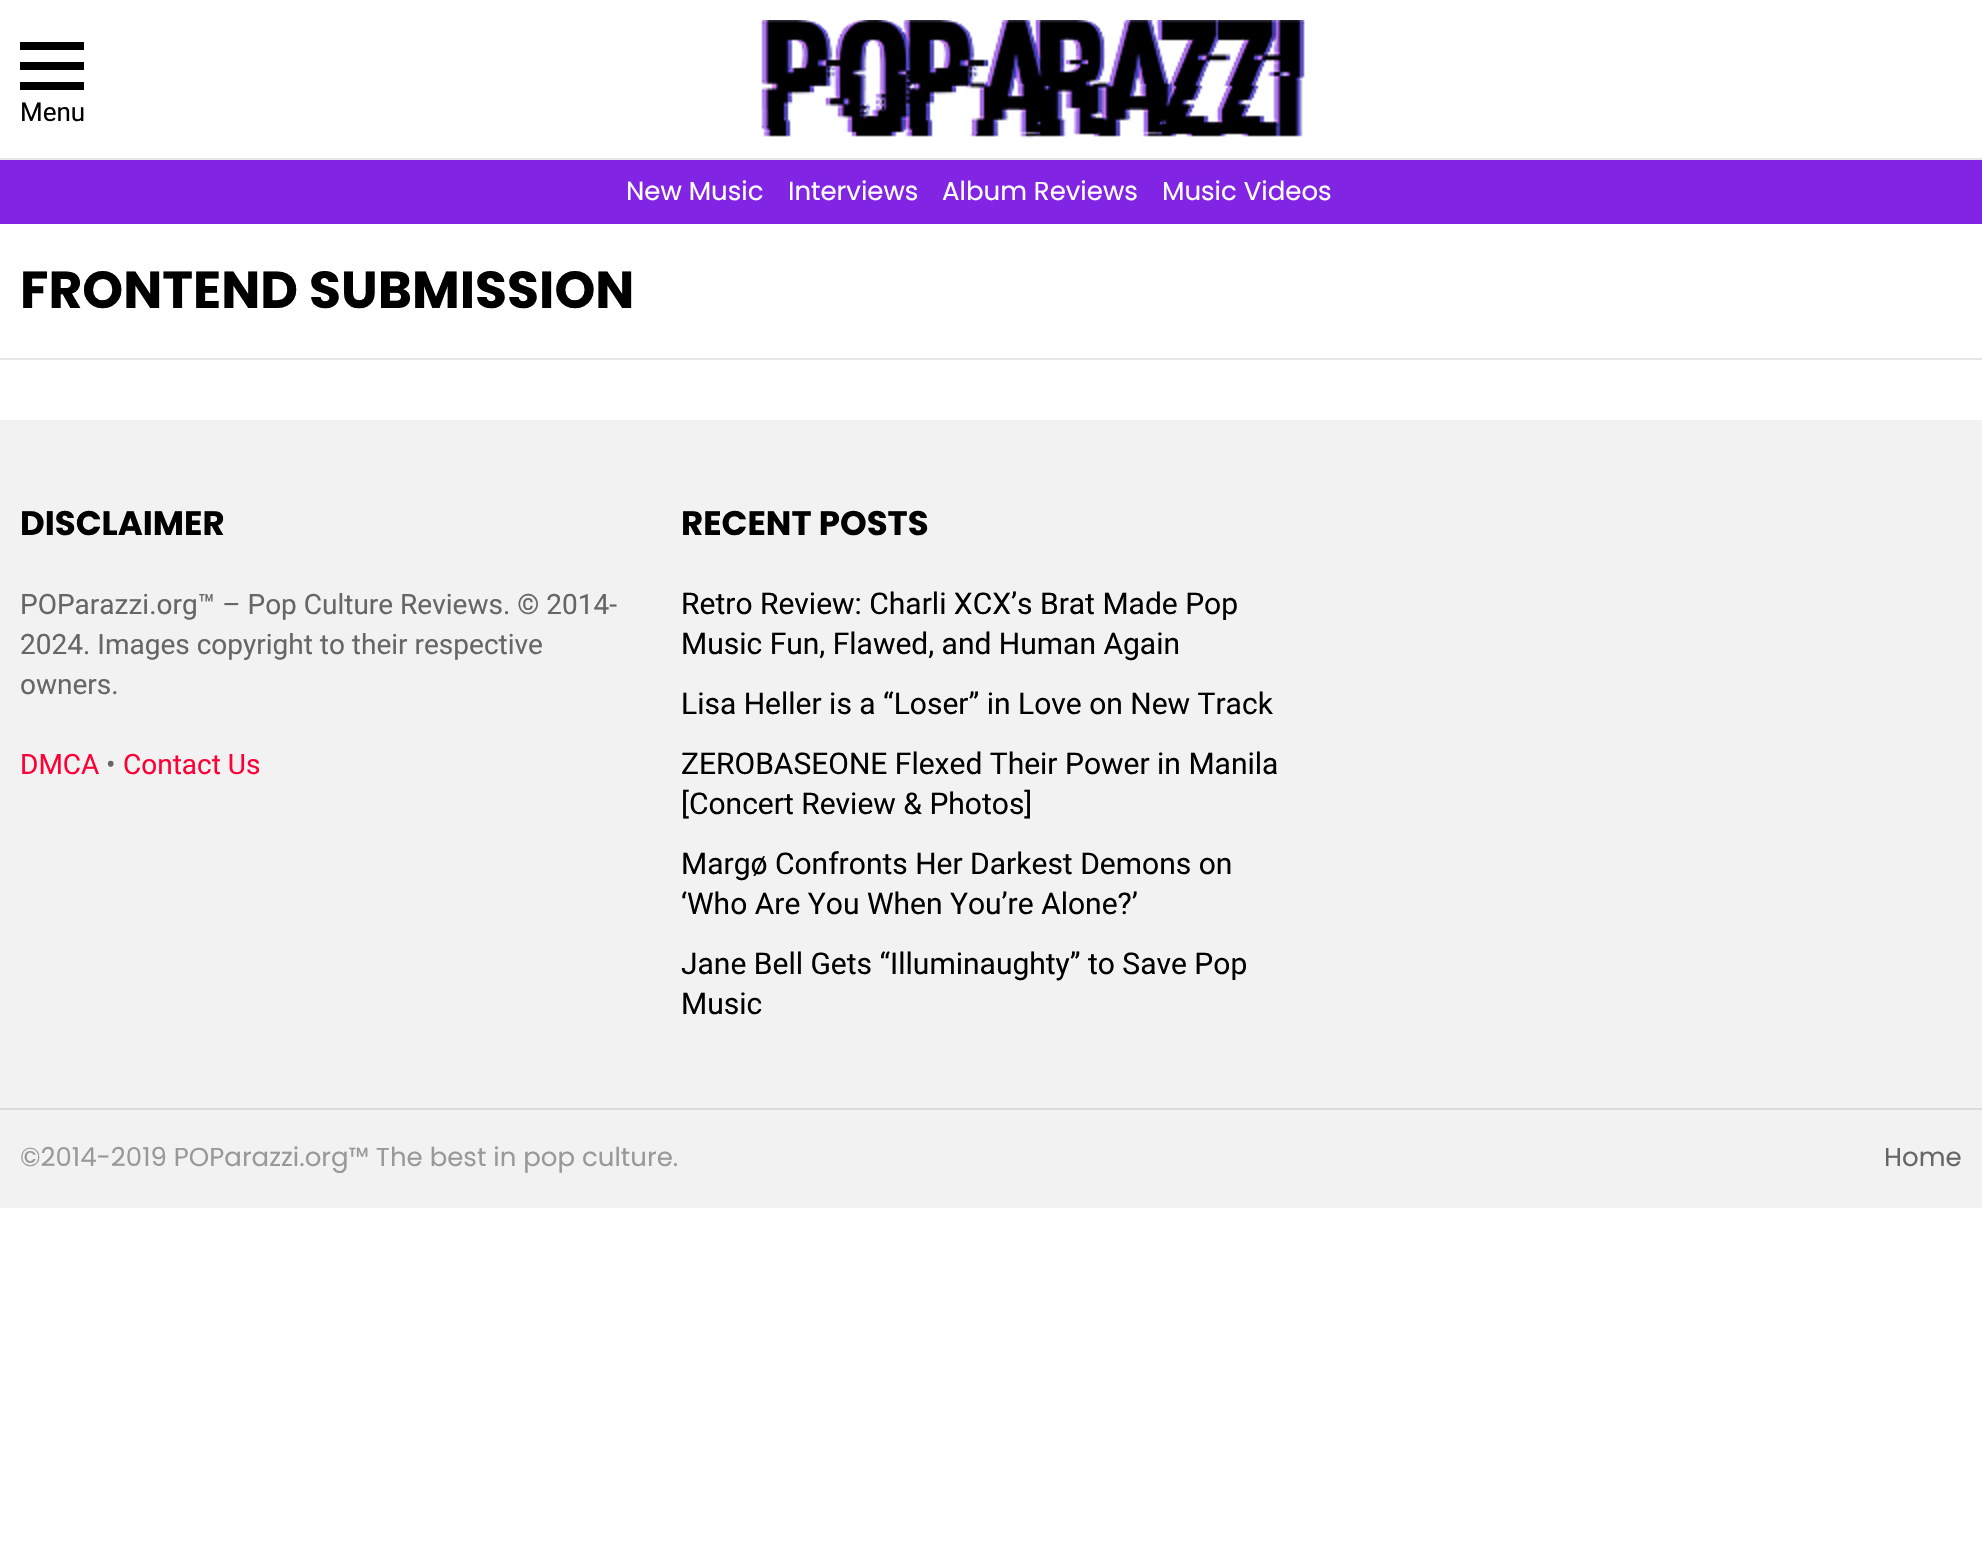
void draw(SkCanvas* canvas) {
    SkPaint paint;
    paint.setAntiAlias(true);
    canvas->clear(0xFFFFFFFF);
    paint.setColor(0xFF000000);
    canvas->drawPath(SkPathBuilder().moveTo(20, 42).lineTo(84, 42).lineTo(84, 50).lineTo(20, 50).close().moveTo(20, 62).lineTo(84, 62).lineTo(84, 70).lineTo(20, 70).close().moveTo(20, 82).lineTo(84, 82).lineTo(84, 90).lineTo(20, 90).close().detach(), paint);
    SkFont font1(fontMgr->matchFamilyStyle("Roboto", SkFontStyle::Normal()), 26);
    font1.setSubpixel(true);
    canvas->drawString("Menu", 20, 121, font1, paint);
    canvas->drawImageRect(SkImages::DeferredFromEncodedData(SkData::MakeFromFileName("img1.png")), SkRect::MakeXYWH(761, 20, 544, 119), SkSamplingOptions());
    paint.setColor(0xFFE6E6E6);
    canvas->drawRect(SkRect::MakeXYWH(0, 158, 1982, 2), paint);
    paint.setColor(0xFF8224E3);
    canvas->drawRect(SkRect::MakeXYWH(0, 160, 1982, 64), paint);
    SkFont font2(fontMgr->matchFamilyStyle("Poppins", SkFontStyle::Normal()), 26);
    font2.setSubpixel(true);
    paint.setColor(0xFFFFFFFF);
    canvas->drawString("New Music", 626, 200, font2, paint);
    canvas->drawString("Interviews", 788, 200, font2, paint);
    canvas->drawString("Album Reviews", 942, 200, font2, paint);
    canvas->drawString("Music Videos", 1162, 200, font2, paint);
    SkFont font3(fontMgr->matchFamilyStyle("Poppins", SkFontStyle::Bold()), 52);
    font3.setSubpixel(true);
    paint.setColor(0xFF000000);
    canvas->drawString("FRONTEND SUBMISSION", 20, 308, font3, paint);
    paint.setColor(0xFFE6E6E6);
    canvas->drawRect(SkRect::MakeXYWH(0, 358, 1982, 2), paint);
    paint.setColor(0xFFF2F2F2);
    canvas->drawRect(SkRect::MakeXYWH(0, 420, 1982, 688), paint);
    SkFont font4(fontMgr->matchFamilyStyle("Poppins", SkFontStyle::Bold()), 34);
    font4.setSubpixel(true);
    paint.setColor(0xFF000000);
    canvas->drawString("DISCLAIMER", 20, 535, font4, paint);
    SkFont font5(fontMgr->matchFamilyStyle("Roboto", SkFontStyle::Normal()), 28);
    font5.setSubpixel(true);
    paint.setColor(0xFF666666);
    canvas->drawString("POParazzi.org™ – Pop Culture Reviews. © 2014-", 20, 614, font5, paint);
    canvas->drawString("2024. Images copyright to their respective", 20, 654, font5, paint);
    canvas->drawString("owners.", 20, 694, font5, paint);
    paint.setColor(0xFFFF0036);
    canvas->drawString("DMCA", 20, 774, font5, paint);
    paint.setColor(0xFF666666);
    canvas->drawString("•", 106, 774, font5, paint);
    paint.setColor(0xFFFF0036);
    canvas->drawString("Contact Us", 123, 774, font5, paint);
    paint.setColor(0xFF000000);
    canvas->drawString("RECENT POSTS", 681, 535, font4, paint);
    SkFont font6(fontMgr->matchFamilyStyle("Roboto", SkFontStyle::Normal()), 30);
    font6.setSubpixel(true);
    canvas->drawString("Retro Review: Charli XCX’s Brat Made Pop", 681, 614, font6, paint);
    canvas->drawString("Music Fun, Flawed, and Human Again", 681, 654, font6, paint);
    canvas->drawString("Lisa Heller is a “Loser” in Love on New Track", 681, 714, font6, paint);
    canvas->drawString("ZEROBASEONE Flexed Their Power in Manila", 681, 774, font6, paint);
    canvas->drawString("[Concert Review & Photos]", 681, 814, font6, paint);
    canvas->drawString("Margø Confronts Her Darkest Demons on", 681, 874, font6, paint);
    canvas->drawString("‘Who Are You When You’re Alone?’", 681, 914, font6, paint);
    canvas->drawString("Jane Bell Gets “Illuminaughty” to Save Pop", 681, 974, font6, paint);
    canvas->drawString("Music", 681, 1014, font6, paint);
    paint.setColor(0xFFDBDBDB);
    canvas->drawRect(SkRect::MakeXYWH(0, 1108, 1982, 2), paint);
    paint.setColor(0xFFF2F2F2);
    canvas->drawRect(SkRect::MakeXYWH(0, 1110, 1982, 98), paint);
    paint.setColor(0xFF999999);
    canvas->drawString("©2014-2019 POParazzi.org™ The best in pop culture.", 20, 1166, font2, paint);
    paint.setColor(0xFF666666);
    canvas->drawString("Home", 1884, 1166, font2, paint);
}
